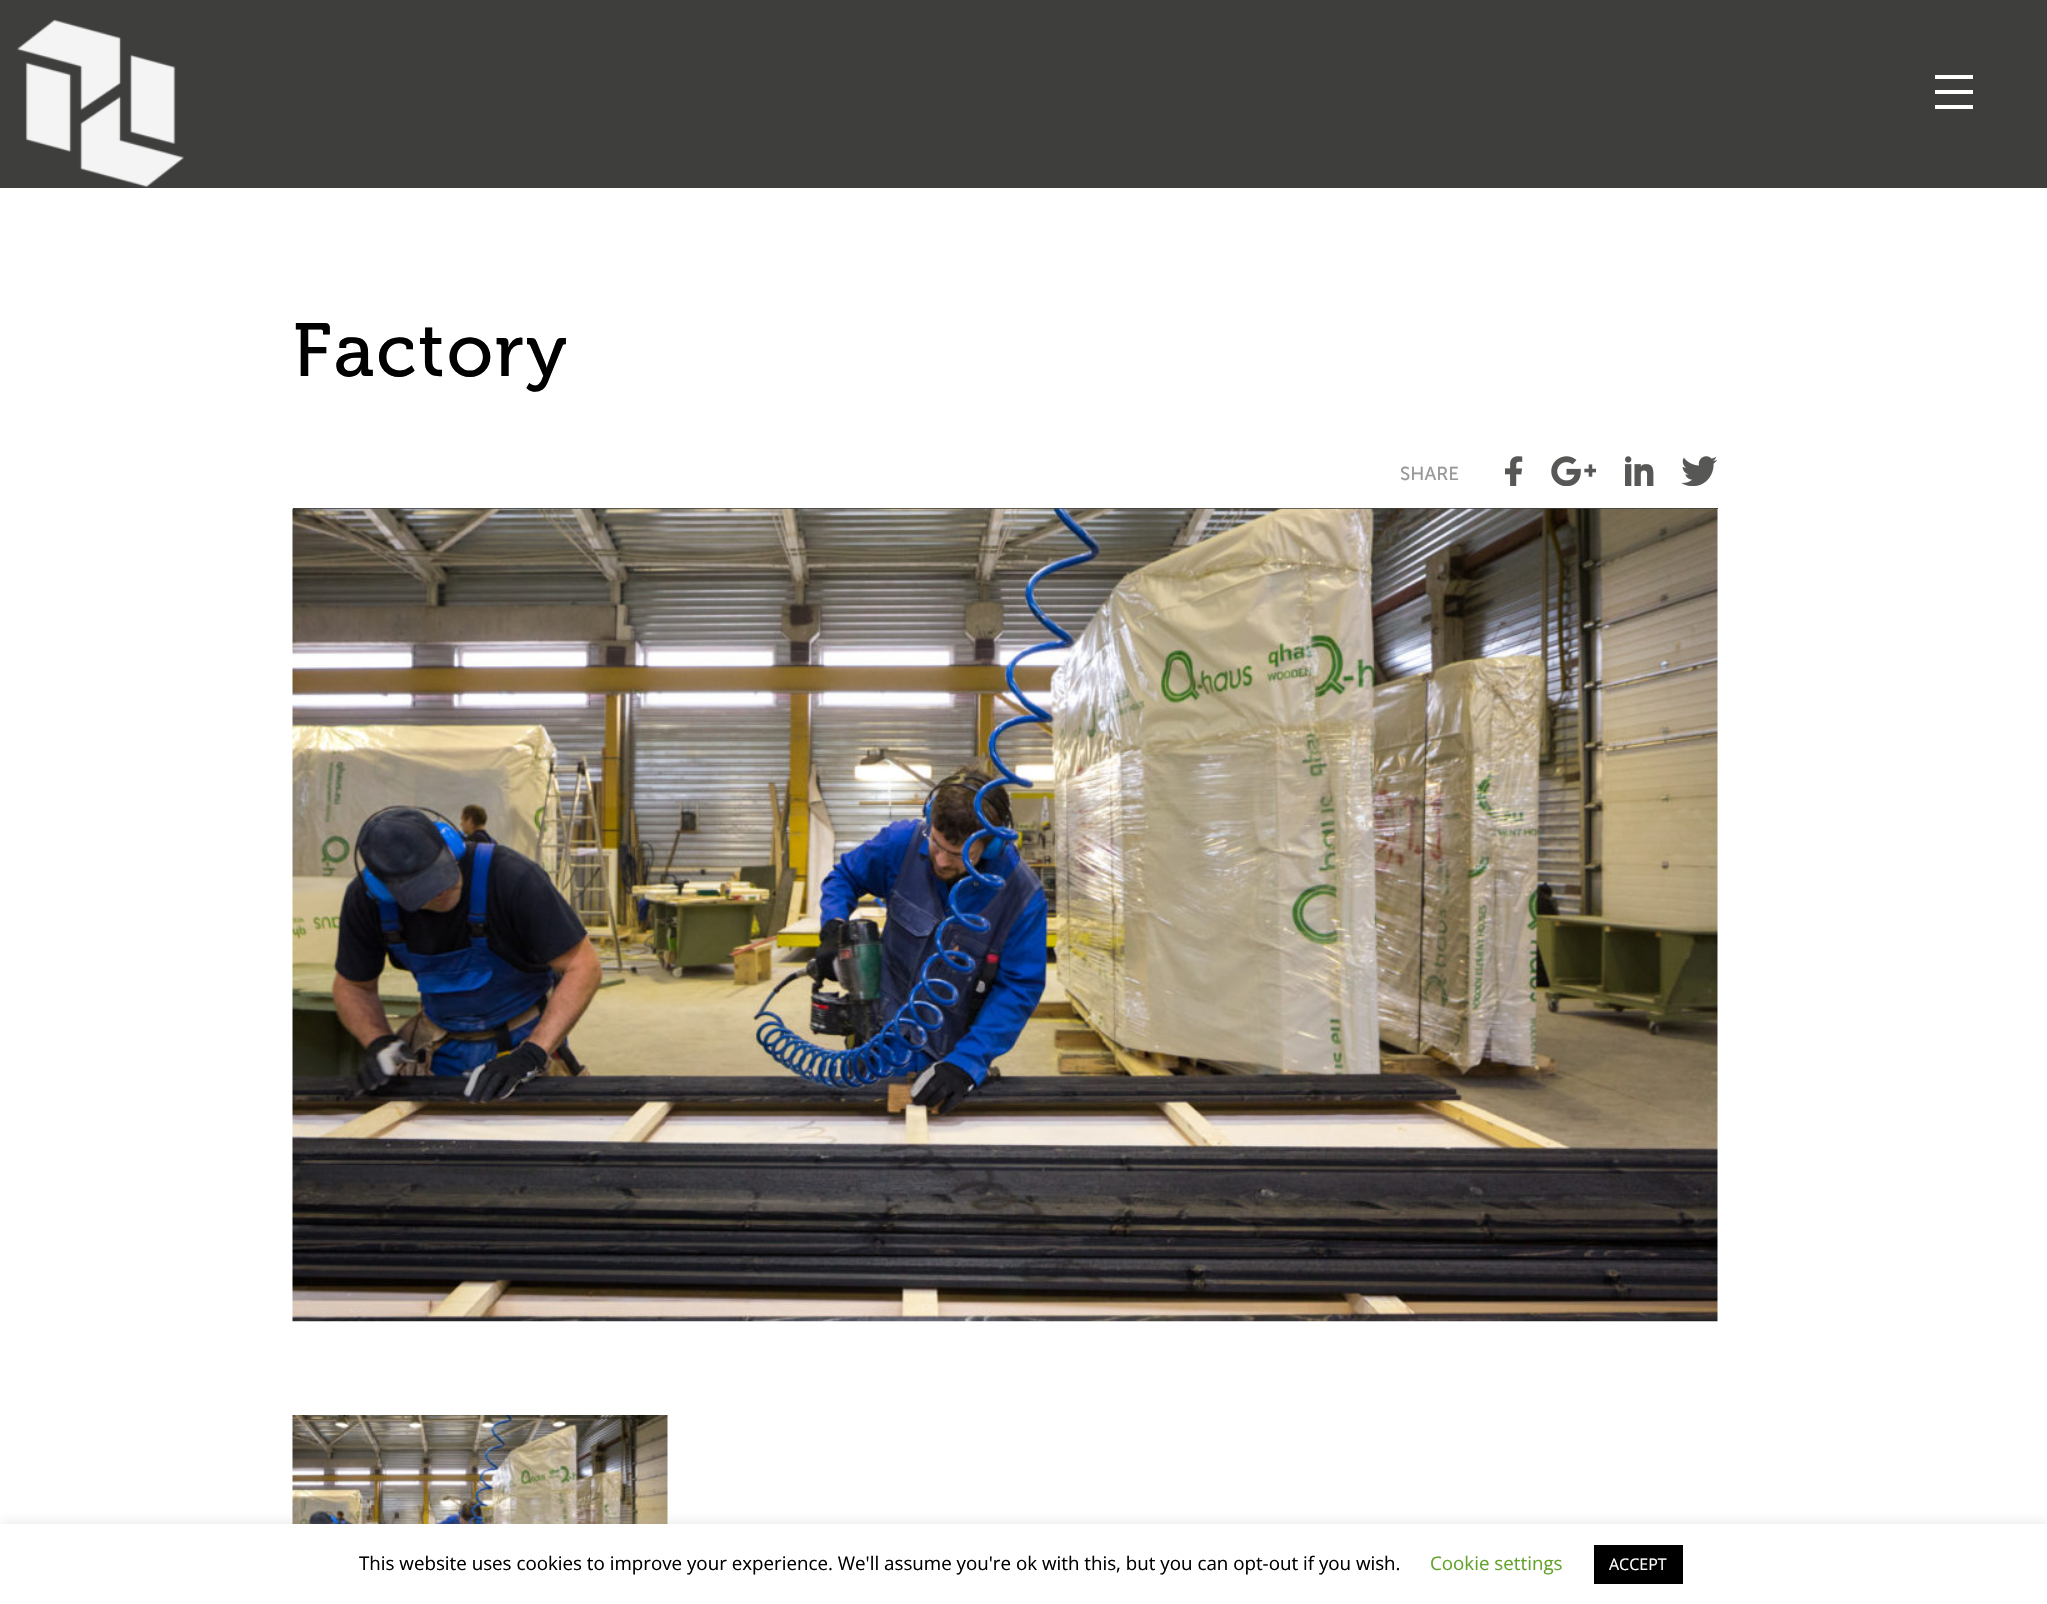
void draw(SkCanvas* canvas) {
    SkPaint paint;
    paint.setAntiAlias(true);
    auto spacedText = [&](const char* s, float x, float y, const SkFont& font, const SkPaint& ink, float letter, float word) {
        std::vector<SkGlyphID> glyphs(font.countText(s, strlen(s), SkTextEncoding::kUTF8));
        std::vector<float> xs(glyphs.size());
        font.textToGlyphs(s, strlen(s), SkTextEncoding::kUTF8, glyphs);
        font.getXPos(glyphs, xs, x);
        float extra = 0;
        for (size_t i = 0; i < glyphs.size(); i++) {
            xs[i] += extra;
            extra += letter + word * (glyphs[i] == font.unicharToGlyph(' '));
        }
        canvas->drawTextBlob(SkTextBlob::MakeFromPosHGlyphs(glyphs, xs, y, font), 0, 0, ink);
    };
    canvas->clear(0xFF3E3E3D);
    canvas->drawImageRect(SkImages::DeferredFromEncodedData(SkData::MakeFromFileName("img1.png")), SkRect::MakeXYWH(17, 19, 167, 169), SkSamplingOptions());
    paint.setColor(0xFFFFFFFF);
    canvas->drawRect(SkRect::MakeXYWH(1935, 75, 38, 4), paint);
    canvas->drawRect(SkRect::MakeXYWH(1935, 90, 38, 4), paint);
    canvas->drawRect(SkRect::MakeXYWH(1935, 105, 38, 4), paint);
    canvas->drawRect(SkRect::MakeXYWH(0, 188, 2047, 1336), paint);
    SkFont font1(fontMgr->matchFamilyStyle("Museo", SkFontStyle::Normal()), 75);
    font1.setSubpixel(true);
    paint.setColor(0xFF000000);
    spacedText("Factory", 293, 376, font1, paint, 2, 0);
    paint.setColor(0xFF3E3E3D);
    canvas->drawRect(SkRect::MakeXYWH(293, 508, 1425, 1), paint);
    SkFont font2(fontMgr->matchFamilyStyle("Museo Sans", SkFontStyle::Normal()), 18.75f);
    font2.setSubpixel(true);
    paint.setColor(0xFF999999);
    canvas->drawString("SHARE", 1400, 480, font2, paint);
    canvas->drawImageRect(SkImages::DeferredFromEncodedData(SkData::MakeFromFileName("img2.png")), SkRect::MakeXYWH(1505, 456, 18, 30), SkSamplingOptions());
    canvas->drawImageRect(SkImages::DeferredFromEncodedData(SkData::MakeFromFileName("img3.png")), SkRect::MakeXYWH(1551, 456, 45, 30), SkSamplingOptions());
    canvas->drawImageRect(SkImages::DeferredFromEncodedData(SkData::MakeFromFileName("img4.png")), SkRect::MakeXYWH(1625, 456, 29, 30), SkSamplingOptions());
    canvas->drawImageRect(SkImages::DeferredFromEncodedData(SkData::MakeFromFileName("img5.png")), SkRect::MakeXYWH(1681, 456, 36, 30), SkSamplingOptions());
    canvas->drawImageRect(SkImages::DeferredFromEncodedData(SkData::MakeFromFileName("img6.png")), SkRect::MakeXYWH(292, 508, 1426, 814), SkSamplingOptions());
    canvas->drawImageRect(SkImages::DeferredFromEncodedData(SkData::MakeFromFileName("img7.png")), SkRect::MakeXYWH(292, 1415, 376, 109), SkSamplingOptions());
    paint.setColor(0x4DACABAB);
    paint.setMaskFilter(SkMaskFilter::MakeBlur(kNormal_SkBlurStyle, 6));
    canvas->drawRect(SkRect::MakeXYWH(0, 1523, 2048, 81), paint);
    paint.setMaskFilter(nullptr);
    paint.setColor(0xFFFFFFFF);
    canvas->drawRect(SkRect::MakeXYWH(0, 1524, 2047, 80), paint);
    SkFont font3(fontMgr->matchFamilyStyle("Open Sans", SkFontStyle::Normal()), 18.75f);
    font3.setSubpixel(true);
    paint.setColor(0xFF000000);
    canvas->drawString("This website uses cookies to improve your experience. We'll assume you're ok with this, but you can opt-out if you wish.", 359, 1570, font3, paint);
    paint.setColor(0xFF62A329);
    canvas->drawString("Cookie settings", 1430, 1570, font3, paint);
    paint.setColor(0xFF000000);
    canvas->drawRect(SkRect::MakeXYWH(1594, 1545, 89, 39), paint);
    SkFont font4(fontMgr->matchFamilyStyle("Open Sans", SkFontStyle::Normal()), 16);
    font4.setSubpixel(true);
    paint.setColor(0xFFFFFFFF);
    canvas->drawString("ACCEPT", 1609, 1570, font4, paint);
}
